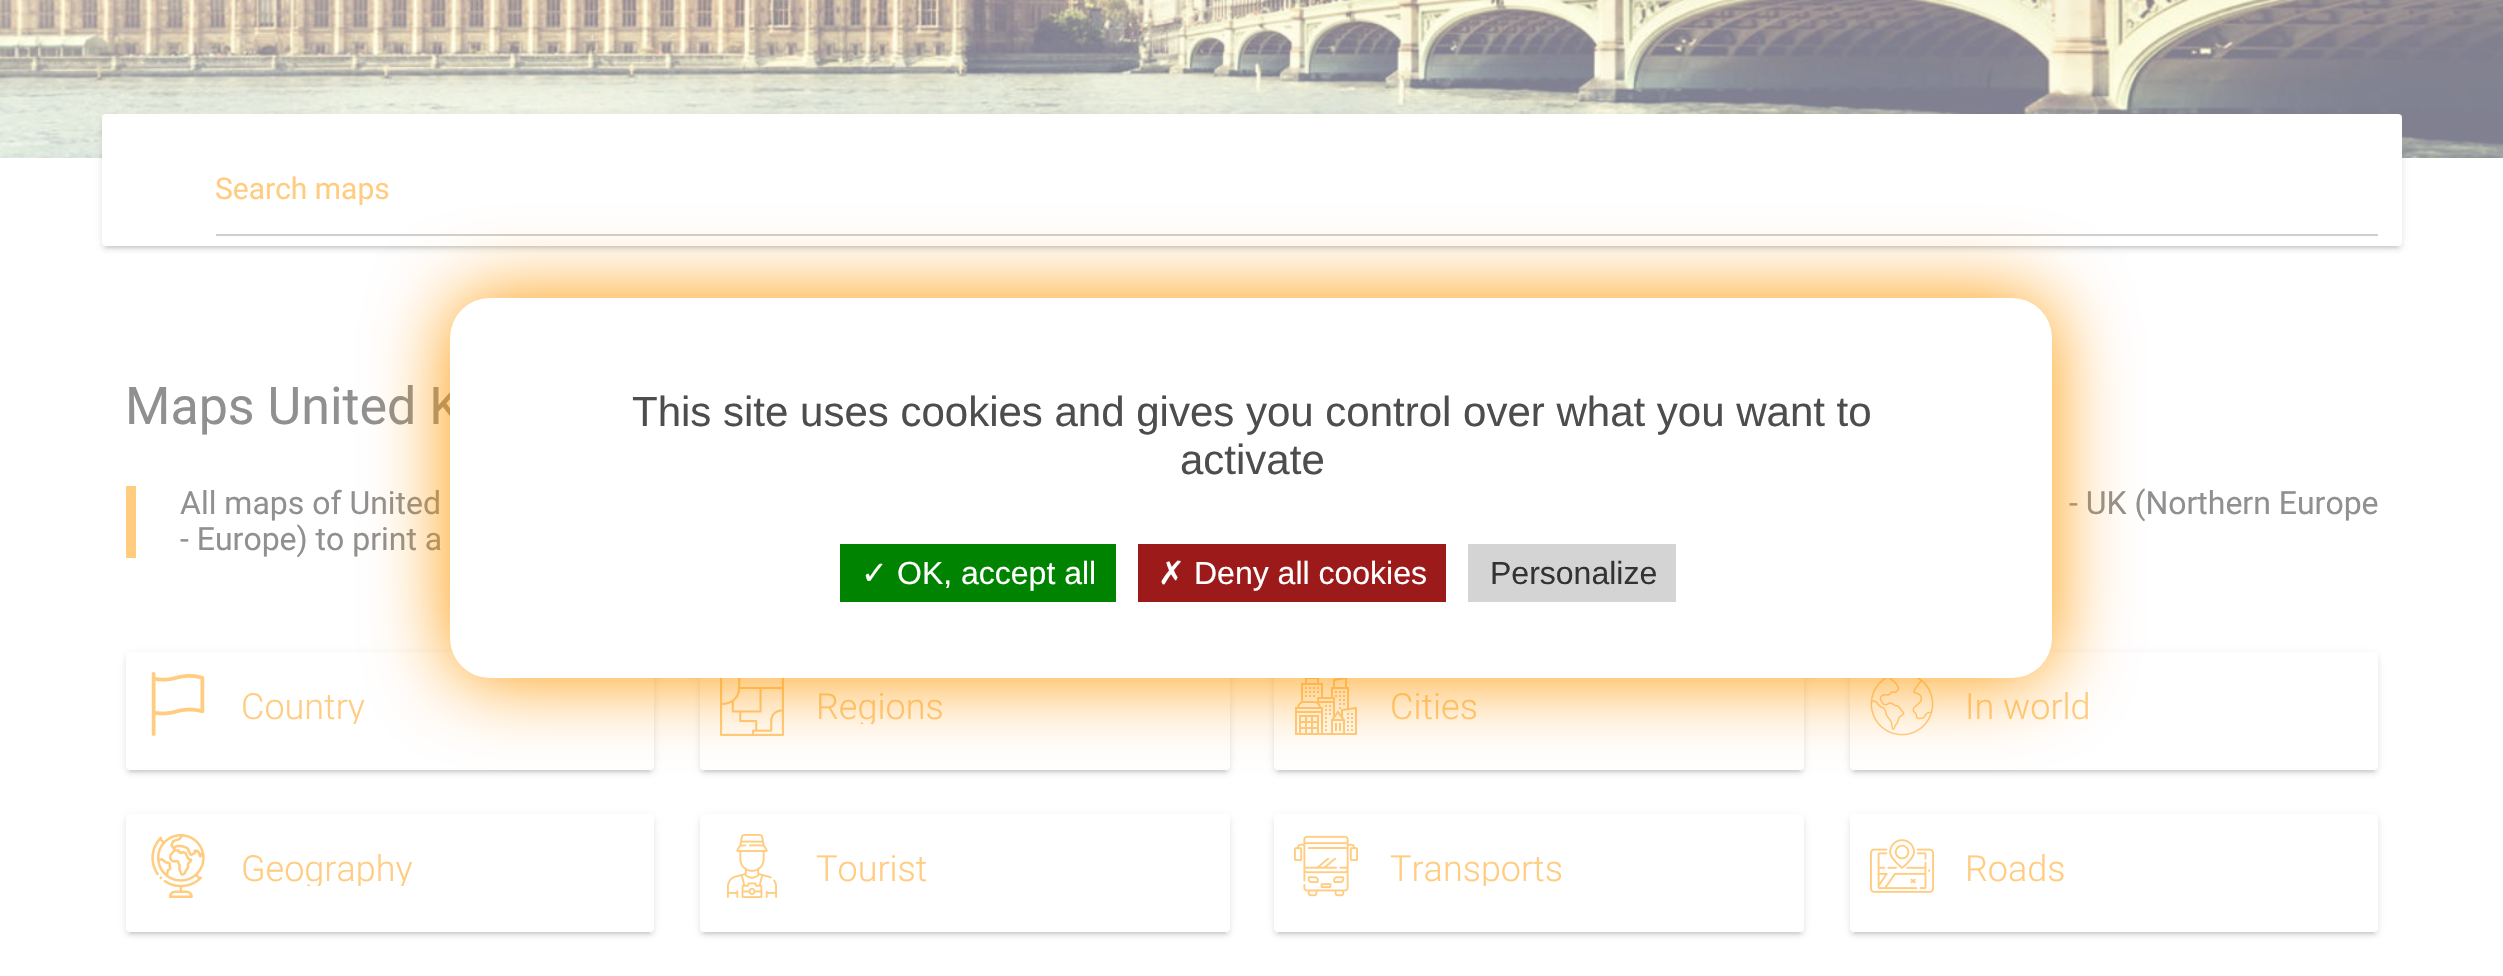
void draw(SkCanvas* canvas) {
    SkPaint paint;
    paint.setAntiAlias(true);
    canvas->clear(0xFFFFFFFF);
    canvas->drawImageRect(SkImages::DeferredFromEncodedData(SkData::MakeFromFileName("img1.png")), SkRect::MakeXYWH(0, 0, 2503, 158), SkSamplingOptions());
    paint.setColor(0x33808080);
    paint.setMaskFilter(SkMaskFilter::MakeBlur(kNormal_SkBlurStyle, 1));
    canvas->drawRect(SkRect::MakeXYWH(106, 124, 2292, 124), paint);
    paint.setMaskFilter(nullptr);
    paint.setColor(0x1F808080);
    paint.setMaskFilter(SkMaskFilter::MakeBlur(kNormal_SkBlurStyle, 5));
    canvas->drawRoundRect(SkRect::MakeXYWH(102, 116, 2300, 132), 4, 4, paint);
    paint.setMaskFilter(nullptr);
    paint.setColor(0x24808080);
    paint.setMaskFilter(SkMaskFilter::MakeBlur(kNormal_SkBlurStyle, 2));
    canvas->drawRoundRect(SkRect::MakeXYWH(102, 118, 2300, 132), 4, 4, paint);
    paint.setMaskFilter(nullptr);
    paint.setColor(0xFFFFFFFF);
    canvas->drawRoundRect(SkRect::MakeXYWH(102, 114, 2300, 132), 4, 4, paint);
    SkFont font1(fontMgr->matchFamilyStyle("Roboto", SkFontStyle::Normal()), 30);
    font1.setSubpixel(true);
    paint.setColor(0xFFFFCC80);
    canvas->drawString("Search maps", 215, 199, font1, paint);
    paint.setColor(0xFFCFCFCF);
    canvas->drawRect(SkRect::MakeXYWH(216, 234, 2162, 2), paint);
    SkFont font2(fontMgr->matchFamilyStyle("Roboto", SkFontStyle::Normal()), 52);
    font2.setSubpixel(true);
    paint.setColor(0xFF909090);
    canvas->drawString("Maps United K", 125, 424, font2, paint);
    paint.setColor(0xFFFFCC80);
    canvas->drawRect(SkRect::MakeXYWH(126, 486, 10, 72), paint);
    SkFont font3(fontMgr->matchFamilyStyle("Roboto", SkFontStyle::Normal()), 32);
    font3.setSubpixel(true);
    paint.setColor(0xFF909090);
    canvas->drawString("All maps of United", 180, 514, font3, paint);
    canvas->drawString("- UK (Northern Europe", 2069, 514, font3, paint);
    canvas->drawString("- Europe) to print a", 180, 550, font3, paint);
    paint.setColor(0x33808080);
    paint.setMaskFilter(SkMaskFilter::MakeBlur(kNormal_SkBlurStyle, 1));
    canvas->drawRect(SkRect::MakeXYWH(130, 662, 520, 110), paint);
    paint.setMaskFilter(nullptr);
    paint.setColor(0x1F808080);
    paint.setMaskFilter(SkMaskFilter::MakeBlur(kNormal_SkBlurStyle, 5));
    canvas->drawRoundRect(SkRect::MakeXYWH(126, 654, 528, 118), 4, 4, paint);
    paint.setMaskFilter(nullptr);
    paint.setColor(0x24808080);
    paint.setMaskFilter(SkMaskFilter::MakeBlur(kNormal_SkBlurStyle, 2));
    canvas->drawRoundRect(SkRect::MakeXYWH(126, 656, 528, 118), 4, 4, paint);
    paint.setMaskFilter(nullptr);
    paint.setColor(0xFFFFFFFF);
    canvas->drawRoundRect(SkRect::MakeXYWH(126, 652, 528, 118), 4, 4, paint);
    canvas->drawImageRect(SkImages::DeferredFromEncodedData(SkData::MakeFromFileName("img2.png")), SkRect::MakeXYWH(151, 672, 54, 64), SkSamplingOptions());
    canvas->save();
    canvas->clipRect(SkRect::MakeXYWH(242, 688, 124, 36));
    SkFont font4(fontMgr->matchFamilyStyle("Roboto", SkFontStyle(300, SkFontStyle::kNormal_Width, SkFontStyle::kUpright_Slant)), 36);
    font4.setSubpixel(true);
    paint.setColor(0xFFFFCC80);
    canvas->drawString("Country", 241, 719, font4, paint);
    canvas->restore();
    paint.setColor(0x33808080);
    paint.setMaskFilter(SkMaskFilter::MakeBlur(kNormal_SkBlurStyle, 1));
    canvas->drawRect(SkRect::MakeXYWH(704, 662, 522, 110), paint);
    paint.setMaskFilter(nullptr);
    paint.setColor(0x1F808080);
    paint.setMaskFilter(SkMaskFilter::MakeBlur(kNormal_SkBlurStyle, 5));
    canvas->drawRoundRect(SkRect::MakeXYWH(700, 654, 530, 118), 4, 4, paint);
    paint.setMaskFilter(nullptr);
    paint.setColor(0x24808080);
    paint.setMaskFilter(SkMaskFilter::MakeBlur(kNormal_SkBlurStyle, 2));
    canvas->drawRoundRect(SkRect::MakeXYWH(700, 656, 530, 118), 4, 4, paint);
    paint.setMaskFilter(nullptr);
    paint.setColor(0xFFFFFFFF);
    canvas->drawRoundRect(SkRect::MakeXYWH(700, 652, 530, 118), 4, 4, paint);
    canvas->drawImageRect(SkImages::DeferredFromEncodedData(SkData::MakeFromFileName("img3.png")), SkRect::MakeXYWH(720, 678, 64, 58), SkSamplingOptions());
    canvas->save();
    canvas->clipRect(SkRect::MakeXYWH(816, 688, 128, 36));
    paint.setColor(0xFFFFCC80);
    canvas->drawString("Regions", 816, 719, font4, paint);
    canvas->restore();
    paint.setColor(0x33808080);
    paint.setMaskFilter(SkMaskFilter::MakeBlur(kNormal_SkBlurStyle, 1));
    canvas->drawRect(SkRect::MakeXYWH(1278, 662, 522, 110), paint);
    paint.setMaskFilter(nullptr);
    paint.setColor(0x1F808080);
    paint.setMaskFilter(SkMaskFilter::MakeBlur(kNormal_SkBlurStyle, 5));
    canvas->drawRoundRect(SkRect::MakeXYWH(1274, 654, 530, 118), 4, 4, paint);
    paint.setMaskFilter(nullptr);
    paint.setColor(0x24808080);
    paint.setMaskFilter(SkMaskFilter::MakeBlur(kNormal_SkBlurStyle, 2));
    canvas->drawRoundRect(SkRect::MakeXYWH(1274, 656, 530, 118), 4, 4, paint);
    paint.setMaskFilter(nullptr);
    paint.setColor(0xFFFFFFFF);
    canvas->drawRoundRect(SkRect::MakeXYWH(1274, 652, 530, 118), 4, 4, paint);
    canvas->drawImageRect(SkImages::DeferredFromEncodedData(SkData::MakeFromFileName("img4.png")), SkRect::MakeXYWH(1295, 678, 62, 57), SkSamplingOptions());
    paint.setColor(0xFFFFCC80);
    canvas->drawString("Cities", 1390, 719, font4, paint);
    paint.setColor(0x33808080);
    paint.setMaskFilter(SkMaskFilter::MakeBlur(kNormal_SkBlurStyle, 1));
    canvas->drawRect(SkRect::MakeXYWH(1854, 662, 520, 110), paint);
    paint.setMaskFilter(nullptr);
    paint.setColor(0x1F808080);
    paint.setMaskFilter(SkMaskFilter::MakeBlur(kNormal_SkBlurStyle, 5));
    canvas->drawRoundRect(SkRect::MakeXYWH(1850, 654, 528, 118), 4, 4, paint);
    paint.setMaskFilter(nullptr);
    paint.setColor(0x24808080);
    paint.setMaskFilter(SkMaskFilter::MakeBlur(kNormal_SkBlurStyle, 2));
    canvas->drawRoundRect(SkRect::MakeXYWH(1850, 656, 528, 118), 4, 4, paint);
    paint.setMaskFilter(nullptr);
    paint.setColor(0xFFFFFFFF);
    canvas->drawRoundRect(SkRect::MakeXYWH(1850, 652, 528, 118), 4, 4, paint);
    canvas->drawImageRect(SkImages::DeferredFromEncodedData(SkData::MakeFromFileName("img5.png")), SkRect::MakeXYWH(1870, 678, 64, 58), SkSamplingOptions());
    paint.setColor(0xFFFFCC80);
    canvas->drawString("In world", 1965, 719, font4, paint);
    paint.setColor(0x33808080);
    paint.setMaskFilter(SkMaskFilter::MakeBlur(kNormal_SkBlurStyle, 1));
    canvas->drawRect(SkRect::MakeXYWH(130, 824, 520, 110), paint);
    paint.setMaskFilter(nullptr);
    paint.setColor(0x1F808080);
    paint.setMaskFilter(SkMaskFilter::MakeBlur(kNormal_SkBlurStyle, 5));
    canvas->drawRoundRect(SkRect::MakeXYWH(126, 816, 528, 118), 4, 4, paint);
    paint.setMaskFilter(nullptr);
    paint.setColor(0x24808080);
    paint.setMaskFilter(SkMaskFilter::MakeBlur(kNormal_SkBlurStyle, 2));
    canvas->drawRoundRect(SkRect::MakeXYWH(126, 818, 528, 118), 4, 4, paint);
    paint.setMaskFilter(nullptr);
    paint.setColor(0xFFFFFFFF);
    canvas->drawRoundRect(SkRect::MakeXYWH(126, 814, 528, 118), 4, 4, paint);
    canvas->drawImageRect(SkImages::DeferredFromEncodedData(SkData::MakeFromFileName("img6.png")), SkRect::MakeXYWH(151, 834, 54, 64), SkSamplingOptions());
    canvas->save();
    canvas->clipRect(SkRect::MakeXYWH(242, 850, 170, 36));
    paint.setColor(0xFFFFCC80);
    canvas->drawString("Geography", 241, 881, font4, paint);
    canvas->restore();
    paint.setColor(0x33808080);
    paint.setMaskFilter(SkMaskFilter::MakeBlur(kNormal_SkBlurStyle, 1));
    canvas->drawRect(SkRect::MakeXYWH(704, 824, 522, 110), paint);
    paint.setMaskFilter(nullptr);
    paint.setColor(0x1F808080);
    paint.setMaskFilter(SkMaskFilter::MakeBlur(kNormal_SkBlurStyle, 5));
    canvas->drawRoundRect(SkRect::MakeXYWH(700, 816, 530, 118), 4, 4, paint);
    paint.setMaskFilter(nullptr);
    paint.setColor(0x24808080);
    paint.setMaskFilter(SkMaskFilter::MakeBlur(kNormal_SkBlurStyle, 2));
    canvas->drawRoundRect(SkRect::MakeXYWH(700, 818, 530, 118), 4, 4, paint);
    paint.setMaskFilter(nullptr);
    paint.setColor(0xFFFFFFFF);
    canvas->drawRoundRect(SkRect::MakeXYWH(700, 814, 530, 118), 4, 4, paint);
    canvas->drawImageRect(SkImages::DeferredFromEncodedData(SkData::MakeFromFileName("img7.png")), SkRect::MakeXYWH(727, 834, 50, 64), SkSamplingOptions());
    paint.setColor(0xFFFFCC80);
    canvas->drawString("Tourist", 816, 881, font4, paint);
    paint.setColor(0x33808080);
    paint.setMaskFilter(SkMaskFilter::MakeBlur(kNormal_SkBlurStyle, 1));
    canvas->drawRect(SkRect::MakeXYWH(1278, 824, 522, 110), paint);
    paint.setMaskFilter(nullptr);
    paint.setColor(0x1F808080);
    paint.setMaskFilter(SkMaskFilter::MakeBlur(kNormal_SkBlurStyle, 5));
    canvas->drawRoundRect(SkRect::MakeXYWH(1274, 816, 530, 118), 4, 4, paint);
    paint.setMaskFilter(nullptr);
    paint.setColor(0x24808080);
    paint.setMaskFilter(SkMaskFilter::MakeBlur(kNormal_SkBlurStyle, 2));
    canvas->drawRoundRect(SkRect::MakeXYWH(1274, 818, 530, 118), 4, 4, paint);
    paint.setMaskFilter(nullptr);
    paint.setColor(0xFFFFFFFF);
    canvas->drawRoundRect(SkRect::MakeXYWH(1274, 814, 530, 118), 4, 4, paint);
    canvas->drawImageRect(SkImages::DeferredFromEncodedData(SkData::MakeFromFileName("img8.png")), SkRect::MakeXYWH(1294, 835, 64, 62), SkSamplingOptions());
    canvas->save();
    canvas->clipRect(SkRect::MakeXYWH(1390, 850, 174, 36));
    paint.setColor(0xFFFFCC80);
    canvas->drawString("Transports", 1390, 881, font4, paint);
    canvas->restore();
    paint.setColor(0x33808080);
    paint.setMaskFilter(SkMaskFilter::MakeBlur(kNormal_SkBlurStyle, 1));
    canvas->drawRect(SkRect::MakeXYWH(1854, 824, 520, 110), paint);
    paint.setMaskFilter(nullptr);
    paint.setColor(0x1F808080);
    paint.setMaskFilter(SkMaskFilter::MakeBlur(kNormal_SkBlurStyle, 5));
    canvas->drawRoundRect(SkRect::MakeXYWH(1850, 816, 528, 118), 4, 4, paint);
    paint.setMaskFilter(nullptr);
    paint.setColor(0x24808080);
    paint.setMaskFilter(SkMaskFilter::MakeBlur(kNormal_SkBlurStyle, 2));
    canvas->drawRoundRect(SkRect::MakeXYWH(1850, 818, 528, 118), 4, 4, paint);
    paint.setMaskFilter(nullptr);
    paint.setColor(0xFFFFFFFF);
    canvas->drawRoundRect(SkRect::MakeXYWH(1850, 814, 528, 118), 4, 4, paint);
    canvas->drawImageRect(SkImages::DeferredFromEncodedData(SkData::MakeFromFileName("img9.png")), SkRect::MakeXYWH(1870, 839, 64, 54), SkSamplingOptions());
    paint.setColor(0xFFFFCC80);
    canvas->drawString("Roads", 1965, 881, font4, paint);
    paint.setColor(0xFFFF9800);
    paint.setMaskFilter(SkMaskFilter::MakeBlur(kNormal_SkBlurStyle, 40));
    canvas->drawRoundRect(SkRect::MakeXYWH(450, 298, 1602, 380), 40, 40, paint);
    paint.setMaskFilter(nullptr);
    paint.setColor(0xFFFFFFFF);
    canvas->drawRoundRect(SkRect::MakeXYWH(450, 298, 1602, 380), 40, 40, paint);
    SkFont font5(fontMgr->matchFamilyStyle("Liberation Sans", SkFontStyle::Normal()), 42);
    font5.setSubpixel(true);
    paint.setColor(0xFF4D4D4D);
    canvas->drawString("This site uses cookies and gives you control over what you want to", 632, 426, font5, paint);
    canvas->drawString("activate", 1180, 474, font5, paint);
    paint.setColor(0xFF008300);
    canvas->drawRect(SkRect::MakeXYWH(840, 544, 276, 58), paint);
    SkFont font6(fontMgr->matchFamilyStyle("DejaVu Sans", SkFontStyle::Normal()), 32);
    font6.setSubpixel(true);
    paint.setColor(0xFFFFFFFF);
    canvas->drawString("✓", 861, 584, font6, paint);
    SkFont font7(fontMgr->matchFamilyStyle("Liberation Sans", SkFontStyle::Normal()), 32);
    font7.setSubpixel(true);
    canvas->drawString("OK, accept all", 897, 584, font7, paint);
    paint.setColor(0xFF9C1A1A);
    canvas->drawRect(SkRect::MakeXYWH(1138, 544, 308, 58), paint);
    paint.setColor(0xFFFFFFFF);
    canvas->drawString("✗", 1158, 584, font6, paint);
    canvas->drawString("Deny all cookies", 1194, 584, font7, paint);
    paint.setColor(0xFFD4D4D4);
    canvas->drawRect(SkRect::MakeXYWH(1468, 544, 208, 58), paint);
    paint.setColor(0xFF333333);
    canvas->drawString("Personalize", 1490, 584, font7, paint);
}
